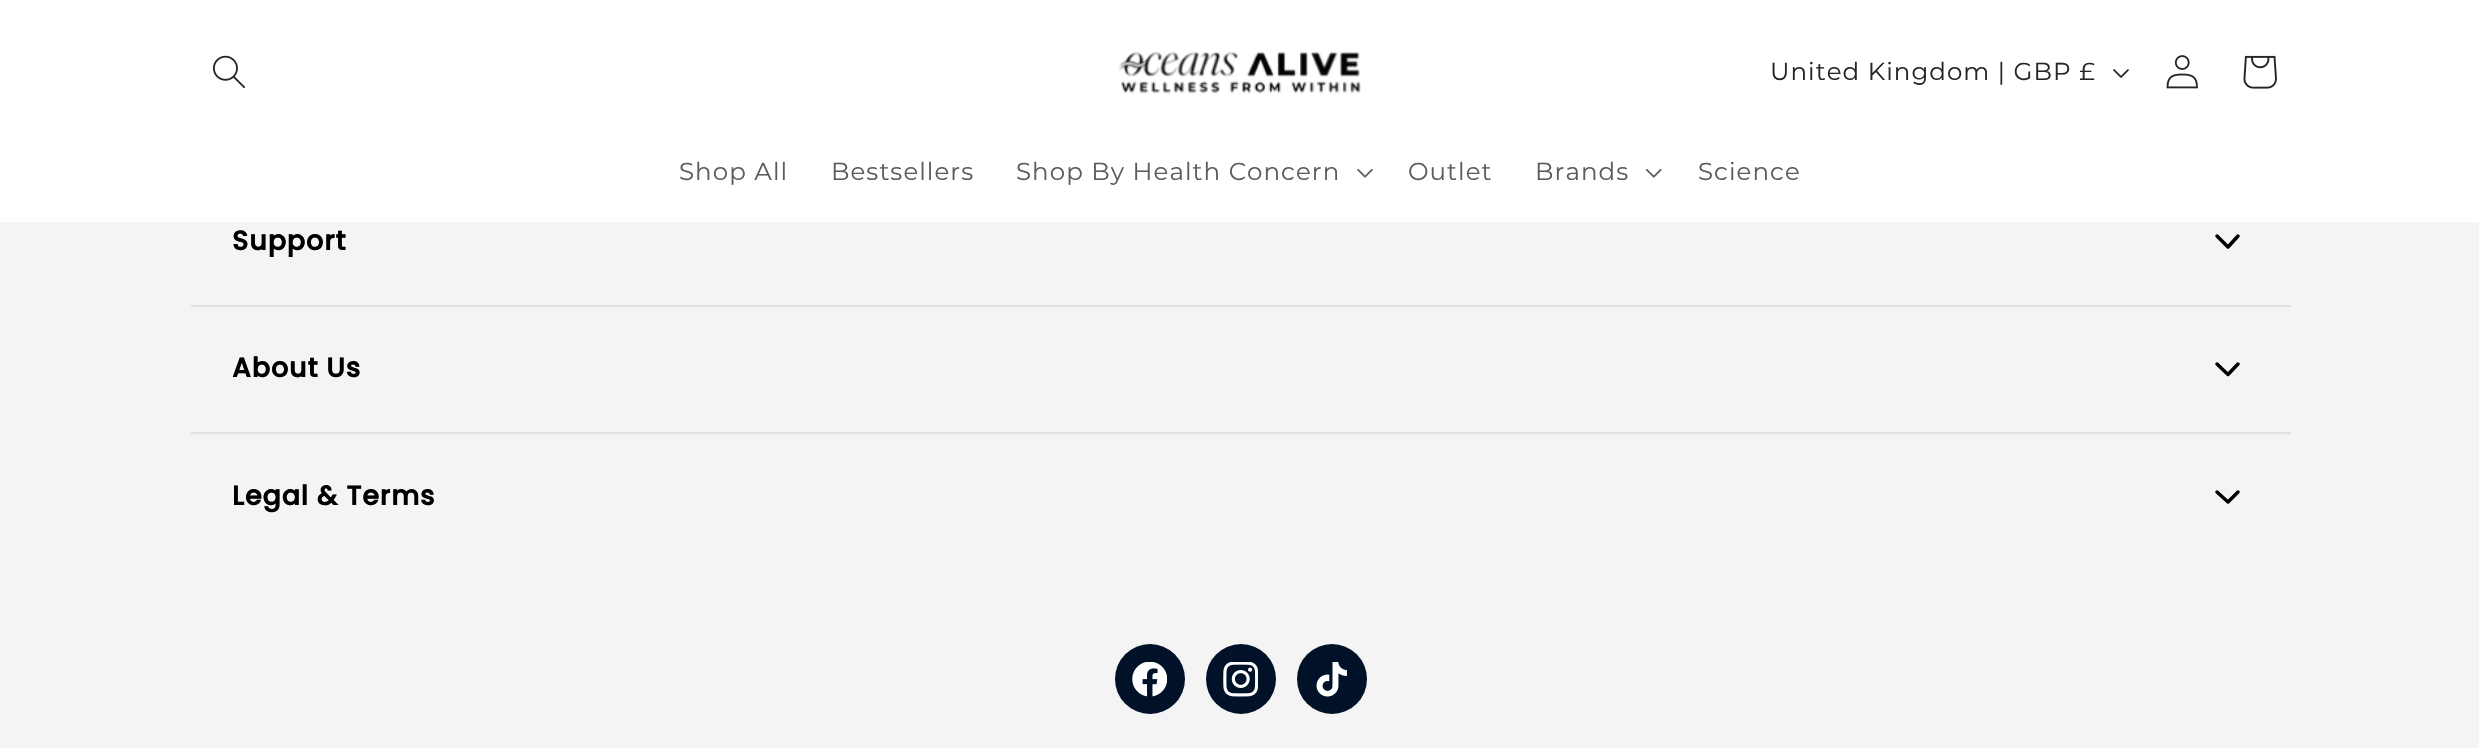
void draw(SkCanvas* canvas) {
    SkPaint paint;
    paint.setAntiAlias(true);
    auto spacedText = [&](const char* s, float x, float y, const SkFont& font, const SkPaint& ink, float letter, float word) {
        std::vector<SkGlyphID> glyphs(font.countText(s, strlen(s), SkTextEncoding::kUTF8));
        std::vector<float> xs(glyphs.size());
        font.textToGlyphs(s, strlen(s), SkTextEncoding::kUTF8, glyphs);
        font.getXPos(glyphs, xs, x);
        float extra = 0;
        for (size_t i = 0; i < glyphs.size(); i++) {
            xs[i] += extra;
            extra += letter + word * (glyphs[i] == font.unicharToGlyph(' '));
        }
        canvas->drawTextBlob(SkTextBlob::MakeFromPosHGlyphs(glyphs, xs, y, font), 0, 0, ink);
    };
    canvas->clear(0xFFF4F4F4);
    paint.setColor(0xFFFFFFFF);
    canvas->drawRect(SkRect::MakeXYWH(0, 0, 2479, 222), paint);
    canvas->drawImageRect(SkImages::DeferredFromEncodedData(SkData::MakeFromFileName("img1.png")), SkRect::MakeXYWH(213, 55, 32, 34), SkSamplingOptions());
    canvas->drawImageRect(SkImages::DeferredFromEncodedData(SkData::MakeFromFileName("img2.png")), SkRect::MakeXYWH(1118, 51, 243, 43), SkSamplingOptions());
    SkFont font1(fontMgr->matchFamilyStyle("Montserrat", SkFontStyle(100, SkFontStyle::kNormal_Width, SkFontStyle::kUpright_Slant)), 24.5f);
    font1.setSubpixel(true);
    paint.setColor(0xFF262626);
    spacedText("United Kingdom | GBP £", 1770, 80, font1, paint, 1.05f, 0);
    canvas->drawImageRect(SkImages::DeferredFromEncodedData(SkData::MakeFromFileName("img3.png")), SkRect::MakeXYWH(2113, 69, 16, 9), SkSamplingOptions());
    canvas->drawImageRect(SkImages::DeferredFromEncodedData(SkData::MakeFromFileName("img4.png")), SkRect::MakeXYWH(2166, 55, 32, 34), SkSamplingOptions());
    canvas->drawImageRect(SkImages::DeferredFromEncodedData(SkData::MakeFromFileName("img5.png")), SkRect::MakeXYWH(2243, 55, 34, 34), SkSamplingOptions());
    paint.setColor(0xFF5C5C5C);
    spacedText("Shop All", 679, 180, font1, paint, 1.05f, 0);
    spacedText("Bestsellers", 831, 180, font1, paint, 1.05f, 0);
    spacedText("Shop By Health Concern", 1016, 180, font1, paint, 1.05f, 0);
    canvas->drawImageRect(SkImages::DeferredFromEncodedData(SkData::MakeFromFileName("img6.png")), SkRect::MakeXYWH(1357, 169, 16, 9), SkSamplingOptions());
    spacedText("Outlet", 1408, 180, font1, paint, 1.05f, 0);
    spacedText("Brands", 1535, 180, font1, paint, 1.05f, 0);
    canvas->drawImageRect(SkImages::DeferredFromEncodedData(SkData::MakeFromFileName("img7.png")), SkRect::MakeXYWH(1645, 168, 17, 10), SkSamplingOptions());
    spacedText("Science", 1698, 180, font1, paint, 1.05f, 0);
    paint.setColor(0xFFE0E0E0);
    canvas->drawRect(SkRect::MakeXYWH(191, 305, 2100, 2), paint);
    SkFont font2(fontMgr->matchFamilyStyle("Poppins", SkFontStyle::Bold()), 27);
    font2.setSubpixel(true);
    paint.setColor(0xFF000000);
    spacedText("Support", 232, 250, font2, paint, 0.9f, 0);
    paint.setStyle(SkPaint::kStroke_Style);
    paint.setStrokeWidth(3.5f);
    paint.setStrokeCap(SkPaint::kRound_Cap);
    paint.setStrokeJoin(SkPaint::kRound_Join);
    canvas->drawPath(SkPathBuilder().moveTo(2217, 236).lineTo(2228, 247).lineTo(2238, 236).detach(), paint);
    paint.setStyle(SkPaint::kFill_Style);
    paint.setColor(0xFFE0E0E0);
    canvas->drawRect(SkRect::MakeXYWH(191, 432, 2100, 2), paint);
    paint.setColor(0xFF000000);
    spacedText("About Us", 232, 377, font2, paint, 0.9f, 0);
    paint.setStyle(SkPaint::kStroke_Style);
    canvas->drawPath(SkPathBuilder().moveTo(2217, 364).lineTo(2228, 374.5f).lineTo(2238, 364).detach(), paint);
    paint.setStyle(SkPaint::kFill_Style);
    spacedText("Legal & Terms", 232, 505, font2, paint, 0.9f, 0);
    paint.setStyle(SkPaint::kStroke_Style);
    canvas->drawPath(SkPathBuilder().moveTo(2217, 492).lineTo(2228, 502).lineTo(2238, 492).detach(), paint);
    paint.setStyle(SkPaint::kFill_Style);
    paint.setColor(0xFF001128);
    canvas->drawCircle(1150, 679, 35, paint);
    canvas->drawImageRect(SkImages::DeferredFromEncodedData(SkData::MakeFromFileName("img8.png")), SkRect::MakeXYWH(1132, 662, 35, 35), SkSamplingOptions());
    canvas->drawCircle(1241, 679, 35, paint);
    canvas->drawImageRect(SkImages::DeferredFromEncodedData(SkData::MakeFromFileName("img9.png")), SkRect::MakeXYWH(1223, 662, 35, 35), SkSamplingOptions());
    canvas->drawCircle(1332, 679, 35, paint);
    canvas->drawImageRect(SkImages::DeferredFromEncodedData(SkData::MakeFromFileName("img10.png")), SkRect::MakeXYWH(1316, 662, 31, 35), SkSamplingOptions());
}
